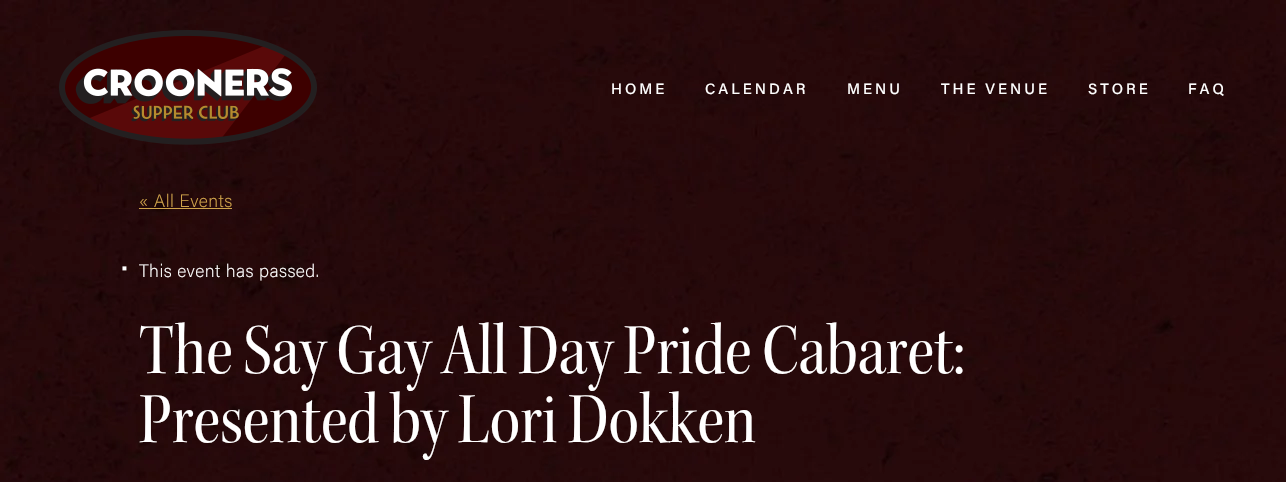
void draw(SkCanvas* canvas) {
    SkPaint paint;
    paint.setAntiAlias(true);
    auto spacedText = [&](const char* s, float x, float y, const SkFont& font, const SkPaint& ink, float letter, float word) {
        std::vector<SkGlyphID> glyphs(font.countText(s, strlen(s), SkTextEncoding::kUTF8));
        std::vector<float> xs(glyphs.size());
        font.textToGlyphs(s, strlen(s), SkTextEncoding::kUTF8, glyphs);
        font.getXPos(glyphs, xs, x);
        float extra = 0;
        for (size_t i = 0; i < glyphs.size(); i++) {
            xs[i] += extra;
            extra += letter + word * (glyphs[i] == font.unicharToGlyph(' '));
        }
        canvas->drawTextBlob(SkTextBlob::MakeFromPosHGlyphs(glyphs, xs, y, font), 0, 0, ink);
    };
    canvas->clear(0xFFFFFFFF);
    canvas->drawImageRect(SkImages::DeferredFromEncodedData(SkData::MakeFromFileName("img1.png")), SkRect::MakeXYWH(0, 0, 1286, 482), SkSamplingOptions());
    canvas->drawImageRect(SkImages::DeferredFromEncodedData(SkData::MakeFromFileName("img2.png")), SkRect::MakeXYWH(59, 30, 258, 115), SkSamplingOptions());
    SkFont font1(fontMgr->matchFamilyStyle("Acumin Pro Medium", SkFontStyle(500, SkFontStyle::kNormal_Width, SkFontStyle::kUpright_Slant)), 15);
    font1.setSubpixel(true);
    paint.setColor(0xFFFFFFFF);
    spacedText("HOME", 611, 94, font1, paint, 3, 0);
    spacedText("CALENDAR", 705, 94, font1, paint, 3, 0);
    spacedText("MENU", 847, 94, font1, paint, 3, 0);
    spacedText("THE VENUE", 941, 94, font1, paint, 3, 0);
    spacedText("STORE", 1088, 94, font1, paint, 3, 0);
    spacedText("FAQ", 1188, 94, font1, paint, 3, 0);
    SkFont font2(fontMgr->matchFamilyStyle("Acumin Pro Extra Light", SkFontStyle(200, SkFontStyle::kNormal_Width, SkFontStyle::kUpright_Slant)), 18);
    font2.setSubpixel(true);
    paint.setColor(0xFFD0A44B);
    spacedText("« All Events", 139, 207, font2, paint, 0.4f, 0);
    canvas->drawRect(SkRect::MakeXYWH(139, 208, 93, 1), paint);
    SkFont font3(fontMgr->matchFamilyStyle("Acumin Pro Medium", SkFontStyle(500, SkFontStyle::kNormal_Width, SkFontStyle::kUpright_Slant)), 18);
    font3.setSubpixel(true);
    paint.setColor(0xFFFFFFFF);
    spacedText("•", 121, 273, font3, paint, 0.4f, 0);
    spacedText("This event has passed.", 139, 277, font2, paint, 0.4f, 0);
    SkFont font4(fontMgr->matchFamilyStyle("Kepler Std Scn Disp", SkFontStyle::Normal()), 74);
    font4.setSubpixel(true);
    canvas->drawString("The Say Gay All Day Pride Cabaret:", 139, 373, font4, paint);
    canvas->drawString("Presented by Lori Dokken", 139, 442, font4, paint);
}
